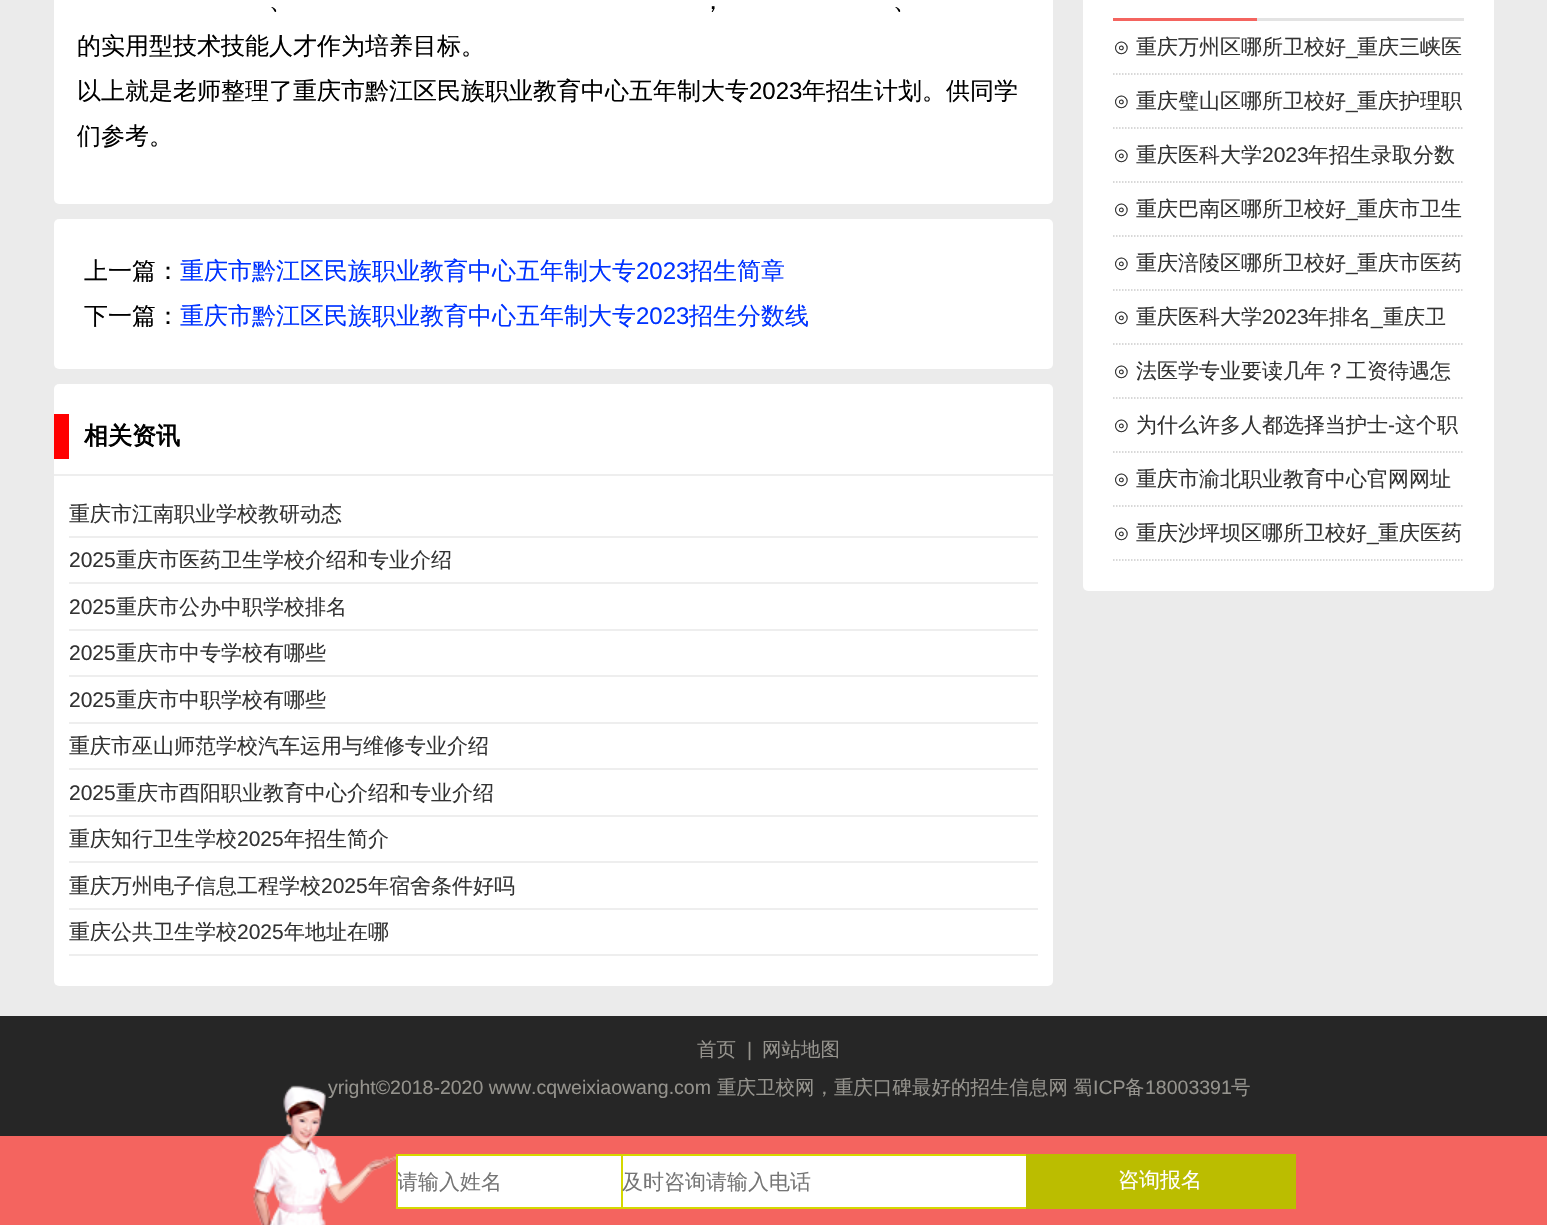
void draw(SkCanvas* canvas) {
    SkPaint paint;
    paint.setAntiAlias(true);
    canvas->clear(0xFFEBEBEB);
    paint.setColor(0xFFFFFFFF);
    canvas->drawRoundRect(SkRect::MakeXYWH(54, -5, 999, 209), 5, 5, paint);
    SkFont font1(fontMgr->matchFamilyStyle("WenQuanYi Zen Hei", SkFontStyle(500, SkFontStyle::kNormal_Width, SkFontStyle::kUpright_Slant)), 24);
    font1.setSubpixel(true);
    paint.setColor(0xFF000000);
    canvas->drawString("、", 269, 9, font1, paint);
    canvas->drawString("，", 701, 9, font1, paint);
    canvas->drawString("、", 893, 9, font1, paint);
    canvas->drawString("的实用型技术技能人才作为培养目标。", 77, 54, font1, paint);
    canvas->drawString("以上就是老师整理了重庆市黔江区民族职业教育中心五年制大专", 77, 99, font1, paint);
    SkFont font2(fontMgr->matchFamilyStyle("Liberation Sans", SkFontStyle::Normal()), 24);
    font2.setSubpixel(true);
    canvas->drawString("2023", 749, 99, font2, paint);
    canvas->drawString("年招生计划。供同学", 802, 99, font1, paint);
    canvas->drawString("们参考。", 77, 144, font1, paint);
    paint.setColor(0xFFFFFFFF);
    canvas->drawRoundRect(SkRect::MakeXYWH(54, 219, 999, 150), 5, 5, paint);
    paint.setColor(0xFF000000);
    canvas->drawString("上一篇：", 84, 279, font1, paint);
    paint.setColor(0xFF0033FF);
    canvas->drawString("重庆市黔江区民族职业教育中心五年制大专", 180, 279, font1, paint);
    canvas->drawString("2023", 636, 279, font2, paint);
    canvas->drawString("招生简章", 689, 279, font1, paint);
    paint.setColor(0xFF000000);
    canvas->drawString("下一篇：", 84, 324, font1, paint);
    paint.setColor(0xFF0033FF);
    canvas->drawString("重庆市黔江区民族职业教育中心五年制大专", 180, 324, font1, paint);
    canvas->drawString("2023", 636, 324, font2, paint);
    canvas->drawString("招生分数线", 689, 324, font1, paint);
    paint.setColor(0xFFFFFFFF);
    canvas->drawRoundRect(SkRect::MakeXYWH(54, 384, 999, 602), 5, 5, paint);
    paint.setColor(0xFFEEEEEE);
    canvas->drawRect(SkRect::MakeXYWH(54, 474, 999, 2), paint);
    paint.setColor(0xFFFF0000);
    canvas->drawRect(SkRect::MakeXYWH(54, 414, 15, 45), paint);
    SkFont font3(fontMgr->matchFamilyStyle("WenQuanYi Zen Hei", SkFontStyle::Bold()), 24);
    font3.setSubpixel(true);
    paint.setColor(0xFF000000);
    canvas->drawString("相关资讯", 84, 444, font3, paint);
    paint.setColor(0xFFEEEEEE);
    canvas->drawRect(SkRect::MakeXYWH(69, 536, 969, 2), paint);
    SkFont font4(fontMgr->matchFamilyStyle("WenQuanYi Zen Hei", SkFontStyle(500, SkFontStyle::kNormal_Width, SkFontStyle::kUpright_Slant)), 21);
    font4.setSubpixel(true);
    paint.setColor(0xFF333333);
    canvas->drawString("重庆市江南职业学校教研动态", 69, 521, font4, paint);
    paint.setColor(0xFFEEEEEE);
    canvas->drawRect(SkRect::MakeXYWH(69, 582, 969, 2), paint);
    SkFont font5(fontMgr->matchFamilyStyle("Liberation Sans", SkFontStyle::Normal()), 21);
    font5.setSubpixel(true);
    paint.setColor(0xFF333333);
    canvas->drawString("2025", 69, 567, font5, paint);
    canvas->drawString("重庆市医药卫生学校介绍和专业介绍", 116, 567, font4, paint);
    paint.setColor(0xFFEEEEEE);
    canvas->drawRect(SkRect::MakeXYWH(69, 629, 969, 2), paint);
    paint.setColor(0xFF333333);
    canvas->drawString("2025", 69, 614, font5, paint);
    canvas->drawString("重庆市公办中职学校排名", 116, 614, font4, paint);
    paint.setColor(0xFFEEEEEE);
    canvas->drawRect(SkRect::MakeXYWH(69, 675, 969, 2), paint);
    paint.setColor(0xFF333333);
    canvas->drawString("2025", 69, 660, font5, paint);
    canvas->drawString("重庆市中专学校有哪些", 116, 660, font4, paint);
    paint.setColor(0xFFEEEEEE);
    canvas->drawRect(SkRect::MakeXYWH(69, 722, 969, 2), paint);
    paint.setColor(0xFF333333);
    canvas->drawString("2025", 69, 707, font5, paint);
    canvas->drawString("重庆市中职学校有哪些", 116, 707, font4, paint);
    paint.setColor(0xFFEEEEEE);
    canvas->drawRect(SkRect::MakeXYWH(69, 768, 969, 2), paint);
    paint.setColor(0xFF333333);
    canvas->drawString("重庆市巫山师范学校汽车运用与维修专业介绍", 69, 753, font4, paint);
    paint.setColor(0xFFEEEEEE);
    canvas->drawRect(SkRect::MakeXYWH(69, 815, 969, 2), paint);
    paint.setColor(0xFF333333);
    canvas->drawString("2025", 69, 800, font5, paint);
    canvas->drawString("重庆市酉阳职业教育中心介绍和专业介绍", 116, 800, font4, paint);
    paint.setColor(0xFFEEEEEE);
    canvas->drawRect(SkRect::MakeXYWH(69, 861, 969, 2), paint);
    paint.setColor(0xFF333333);
    canvas->drawString("重庆知行卫生学校", 69, 846, font4, paint);
    canvas->drawString("2025", 237, 846, font5, paint);
    canvas->drawString("年招生简介", 284, 846, font4, paint);
    paint.setColor(0xFFEEEEEE);
    canvas->drawRect(SkRect::MakeXYWH(69, 908, 969, 2), paint);
    paint.setColor(0xFF333333);
    canvas->drawString("重庆万州电子信息工程学校", 69, 893, font4, paint);
    canvas->drawString("2025", 321, 893, font5, paint);
    canvas->drawString("年宿舍条件好吗", 368, 893, font4, paint);
    paint.setColor(0xFFEEEEEE);
    canvas->drawRect(SkRect::MakeXYWH(69, 954, 969, 2), paint);
    paint.setColor(0xFF333333);
    canvas->drawString("重庆公共卫生学校", 69, 939, font4, paint);
    canvas->drawString("2025", 237, 939, font5, paint);
    canvas->drawString("年地址在哪", 284, 939, font4, paint);
    paint.setColor(0xFFFFFFFF);
    canvas->drawRoundRect(SkRect::MakeXYWH(1083, -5, 411, 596), 5, 5, paint);
    paint.setColor(0xFFE3E3E3);
    canvas->drawRect(SkRect::MakeXYWH(1257, 18, 207, 3), paint);
    paint.setColor(0xFFF4645F);
    canvas->drawRect(SkRect::MakeXYWH(1113, 18, 144, 3), paint);
    paint.setStyle(SkPaint::kStroke_Style);
    paint.setStrokeWidth(1.5f);
    paint.setColor(0xFFCCCCCC);
    paint.setPathEffect(SkDashPathEffect::Make({{1.5f, 1.5f}}, 0));
    canvas->drawPath(SkPathBuilder().moveTo(1113, 74).lineTo(1464, 74).detach(), paint);
    paint.setPathEffect(nullptr);
    paint.setStyle(SkPaint::kFill_Style);
    paint.setColor(0xFF333333);
    canvas->drawString("⊙ 重庆万州区哪所卫校好", 1113, 54, font4, paint);
    canvas->drawString("重庆三峡医", 1357, 54, font4, paint);
    canvas->drawString("_", 1346, 54, font5, paint);
    paint.setStyle(SkPaint::kStroke_Style);
    paint.setColor(0xFFCCCCCC);
    paint.setPathEffect(SkDashPathEffect::Make({{1.5f, 1.5f}}, 0));
    canvas->drawPath(SkPathBuilder().moveTo(1113, 128).lineTo(1464, 128).detach(), paint);
    paint.setPathEffect(nullptr);
    paint.setStyle(SkPaint::kFill_Style);
    paint.setColor(0xFF333333);
    canvas->drawString("⊙ 重庆璧山区哪所卫校好", 1113, 108, font4, paint);
    canvas->drawString("_", 1346, 108, font5, paint);
    canvas->drawString("重庆护理职", 1357, 108, font4, paint);
    paint.setStyle(SkPaint::kStroke_Style);
    paint.setColor(0xFFCCCCCC);
    paint.setPathEffect(SkDashPathEffect::Make({{1.5f, 1.5f}}, 0));
    canvas->drawPath(SkPathBuilder().moveTo(1113, 182).lineTo(1464, 182).detach(), paint);
    paint.setPathEffect(nullptr);
    paint.setStyle(SkPaint::kFill_Style);
    paint.setColor(0xFF333333);
    canvas->drawString("⊙ 重庆医科大学", 1113, 162, font4, paint);
    canvas->drawString("2023", 1262, 162, font5, paint);
    canvas->drawString("年招生录取分数", 1308, 162, font4, paint);
    paint.setStyle(SkPaint::kStroke_Style);
    paint.setColor(0xFFCCCCCC);
    paint.setPathEffect(SkDashPathEffect::Make({{1.5f, 1.5f}}, 0));
    canvas->drawPath(SkPathBuilder().moveTo(1113, 236).lineTo(1464, 236).detach(), paint);
    paint.setPathEffect(nullptr);
    paint.setStyle(SkPaint::kFill_Style);
    paint.setColor(0xFF333333);
    canvas->drawString("⊙ 重庆巴南区哪所卫校好", 1113, 216, font4, paint);
    canvas->drawString("重庆市卫生", 1357, 216, font4, paint);
    canvas->drawString("_", 1346, 216, font5, paint);
    paint.setStyle(SkPaint::kStroke_Style);
    paint.setColor(0xFFCCCCCC);
    paint.setPathEffect(SkDashPathEffect::Make({{1.5f, 1.5f}}, 0));
    canvas->drawPath(SkPathBuilder().moveTo(1113, 290).lineTo(1464, 290).detach(), paint);
    paint.setPathEffect(nullptr);
    paint.setStyle(SkPaint::kFill_Style);
    paint.setColor(0xFF333333);
    canvas->drawString("⊙ 重庆涪陵区哪所卫校好", 1113, 270, font4, paint);
    canvas->drawString("重庆市医药", 1357, 270, font4, paint);
    canvas->drawString("_", 1346, 270, font5, paint);
    paint.setStyle(SkPaint::kStroke_Style);
    paint.setColor(0xFFCCCCCC);
    paint.setPathEffect(SkDashPathEffect::Make({{1.5f, 1.5f}}, 0));
    canvas->drawPath(SkPathBuilder().moveTo(1113, 344).lineTo(1464, 344).detach(), paint);
    paint.setPathEffect(nullptr);
    paint.setStyle(SkPaint::kFill_Style);
    paint.setColor(0xFF333333);
    canvas->drawString("⊙ 重庆医科大学", 1113, 324, font4, paint);
    canvas->drawString("2023", 1262, 324, font5, paint);
    canvas->drawString("年排名", 1308, 324, font4, paint);
    canvas->drawString("重庆卫", 1383, 324, font4, paint);
    canvas->drawString("_", 1371, 324, font5, paint);
    paint.setStyle(SkPaint::kStroke_Style);
    paint.setColor(0xFFCCCCCC);
    paint.setPathEffect(SkDashPathEffect::Make({{1.5f, 1.5f}}, 0));
    canvas->drawPath(SkPathBuilder().moveTo(1113, 398).lineTo(1464, 398).detach(), paint);
    paint.setPathEffect(nullptr);
    paint.setStyle(SkPaint::kFill_Style);
    paint.setColor(0xFF333333);
    canvas->drawString("⊙ 法医学专业要读几年？工资待遇怎", 1113, 378, font4, paint);
    paint.setStyle(SkPaint::kStroke_Style);
    paint.setColor(0xFFCCCCCC);
    paint.setPathEffect(SkDashPathEffect::Make({{1.5f, 1.5f}}, 0));
    canvas->drawPath(SkPathBuilder().moveTo(1113, 452).lineTo(1464, 452).detach(), paint);
    paint.setPathEffect(nullptr);
    paint.setStyle(SkPaint::kFill_Style);
    paint.setColor(0xFF333333);
    canvas->drawString("⊙ 为什么许多人都选择当护士", 1113, 432, font4, paint);
    canvas->drawString("-", 1388, 432, font5, paint);
    canvas->drawString("这个职", 1395, 432, font4, paint);
    paint.setStyle(SkPaint::kStroke_Style);
    paint.setColor(0xFFCCCCCC);
    paint.setPathEffect(SkDashPathEffect::Make({{1.5f, 1.5f}}, 0));
    canvas->drawPath(SkPathBuilder().moveTo(1113, 506).lineTo(1464, 506).detach(), paint);
    paint.setPathEffect(nullptr);
    paint.setStyle(SkPaint::kFill_Style);
    paint.setColor(0xFF333333);
    canvas->drawString("⊙ 重庆市渝北职业教育中心官网网址", 1113, 486, font4, paint);
    paint.setStyle(SkPaint::kStroke_Style);
    paint.setColor(0xFFCCCCCC);
    paint.setPathEffect(SkDashPathEffect::Make({{1.5f, 1.5f}}, 0));
    canvas->drawPath(SkPathBuilder().moveTo(1113, 560).lineTo(1464, 560).detach(), paint);
    paint.setPathEffect(nullptr);
    paint.setStyle(SkPaint::kFill_Style);
    paint.setColor(0xFF333333);
    canvas->drawString("⊙ 重庆沙坪坝区哪所卫校好", 1113, 540, font4, paint);
    canvas->drawString("重庆医药", 1378, 540, font4, paint);
    canvas->drawString("_", 1367, 540, font5, paint);
    paint.setColor(0xFF262626);
    canvas->drawRect(SkRect::MakeXYWH(0, 1016, 1547, 120), paint);
    SkFont font6(fontMgr->matchFamilyStyle("WenQuanYi Zen Hei", SkFontStyle(500, SkFontStyle::kNormal_Width, SkFontStyle::kUpright_Slant)), 19.5f);
    font6.setSubpixel(true);
    paint.setColor(0xFF95938D);
    canvas->drawString("首页", 697, 1056, font6, paint);
    SkFont font7(fontMgr->matchFamilyStyle("Liberation Sans", SkFontStyle::Normal()), 19.5f);
    font7.setSubpixel(true);
    canvas->drawString("|", 747, 1056, font7, paint);
    canvas->drawString("网站地图", 762, 1056, font6, paint);
    canvas->drawString("yright©2018-2020 www.cqweixiaowang.com", 328, 1094, font7, paint);
    canvas->drawString("重庆卫校网，重庆口碑最好的招生信息网", 717, 1094, font6, paint);
    canvas->drawString("蜀", 1073, 1094, font6, paint);
    canvas->drawString("ICP", 1093, 1094, font7, paint);
    canvas->drawString("备", 1125, 1094, font6, paint);
    canvas->drawString("18003391", 1145, 1094, font7, paint);
    canvas->drawString("号", 1231, 1094, font6, paint);
    paint.setColor(0xFFF4645F);
    canvas->drawRect(SkRect::MakeXYWH(0, 1136, 1547, 89), paint);
    canvas->drawImageRect(SkImages::DeferredFromEncodedData(SkData::MakeFromFileName("img1.png")), SkRect::MakeXYWH(253, 1085, 143, 140), SkSamplingOptions());
    paint.setColor(0xFFFFFFFF);
    canvas->drawRect(SkRect::MakeXYWH(398, 1156, 223, 51), paint);
    paint.setStyle(SkPaint::kStroke_Style);
    paint.setStrokeWidth(2);
    paint.setColor(0xFFD5D800);
    canvas->drawRect(SkRect::MakeXYWH(397, 1155, 226, 53), paint);
    canvas->save();
    canvas->clipRect(SkRect::MakeXYWH(398, 1170, 223, 27));
    paint.setStyle(SkPaint::kFill_Style);
    paint.setColor(0xFF757575);
    canvas->drawString("请输入姓名", 397, 1189, font4, paint);
    canvas->restore();
    paint.setColor(0xFFFFFFFF);
    canvas->drawRect(SkRect::MakeXYWH(623, 1156, 403, 51), paint);
    paint.setStyle(SkPaint::kStroke_Style);
    paint.setColor(0xFFD5D800);
    canvas->drawRect(SkRect::MakeXYWH(622, 1155, 406, 53), paint);
    paint.setStyle(SkPaint::kFill_Style);
    paint.setColor(0xFF757575);
    canvas->drawString("及时咨询请输入电话", 622, 1189, font4, paint);
    paint.setColor(0xFFBBBD00);
    canvas->drawRect(SkRect::MakeXYWH(1026, 1154, 270, 55), paint);
    paint.setColor(0xFFFFFFFF);
    canvas->drawString("咨询报名", 1118, 1187, font4, paint);
}
